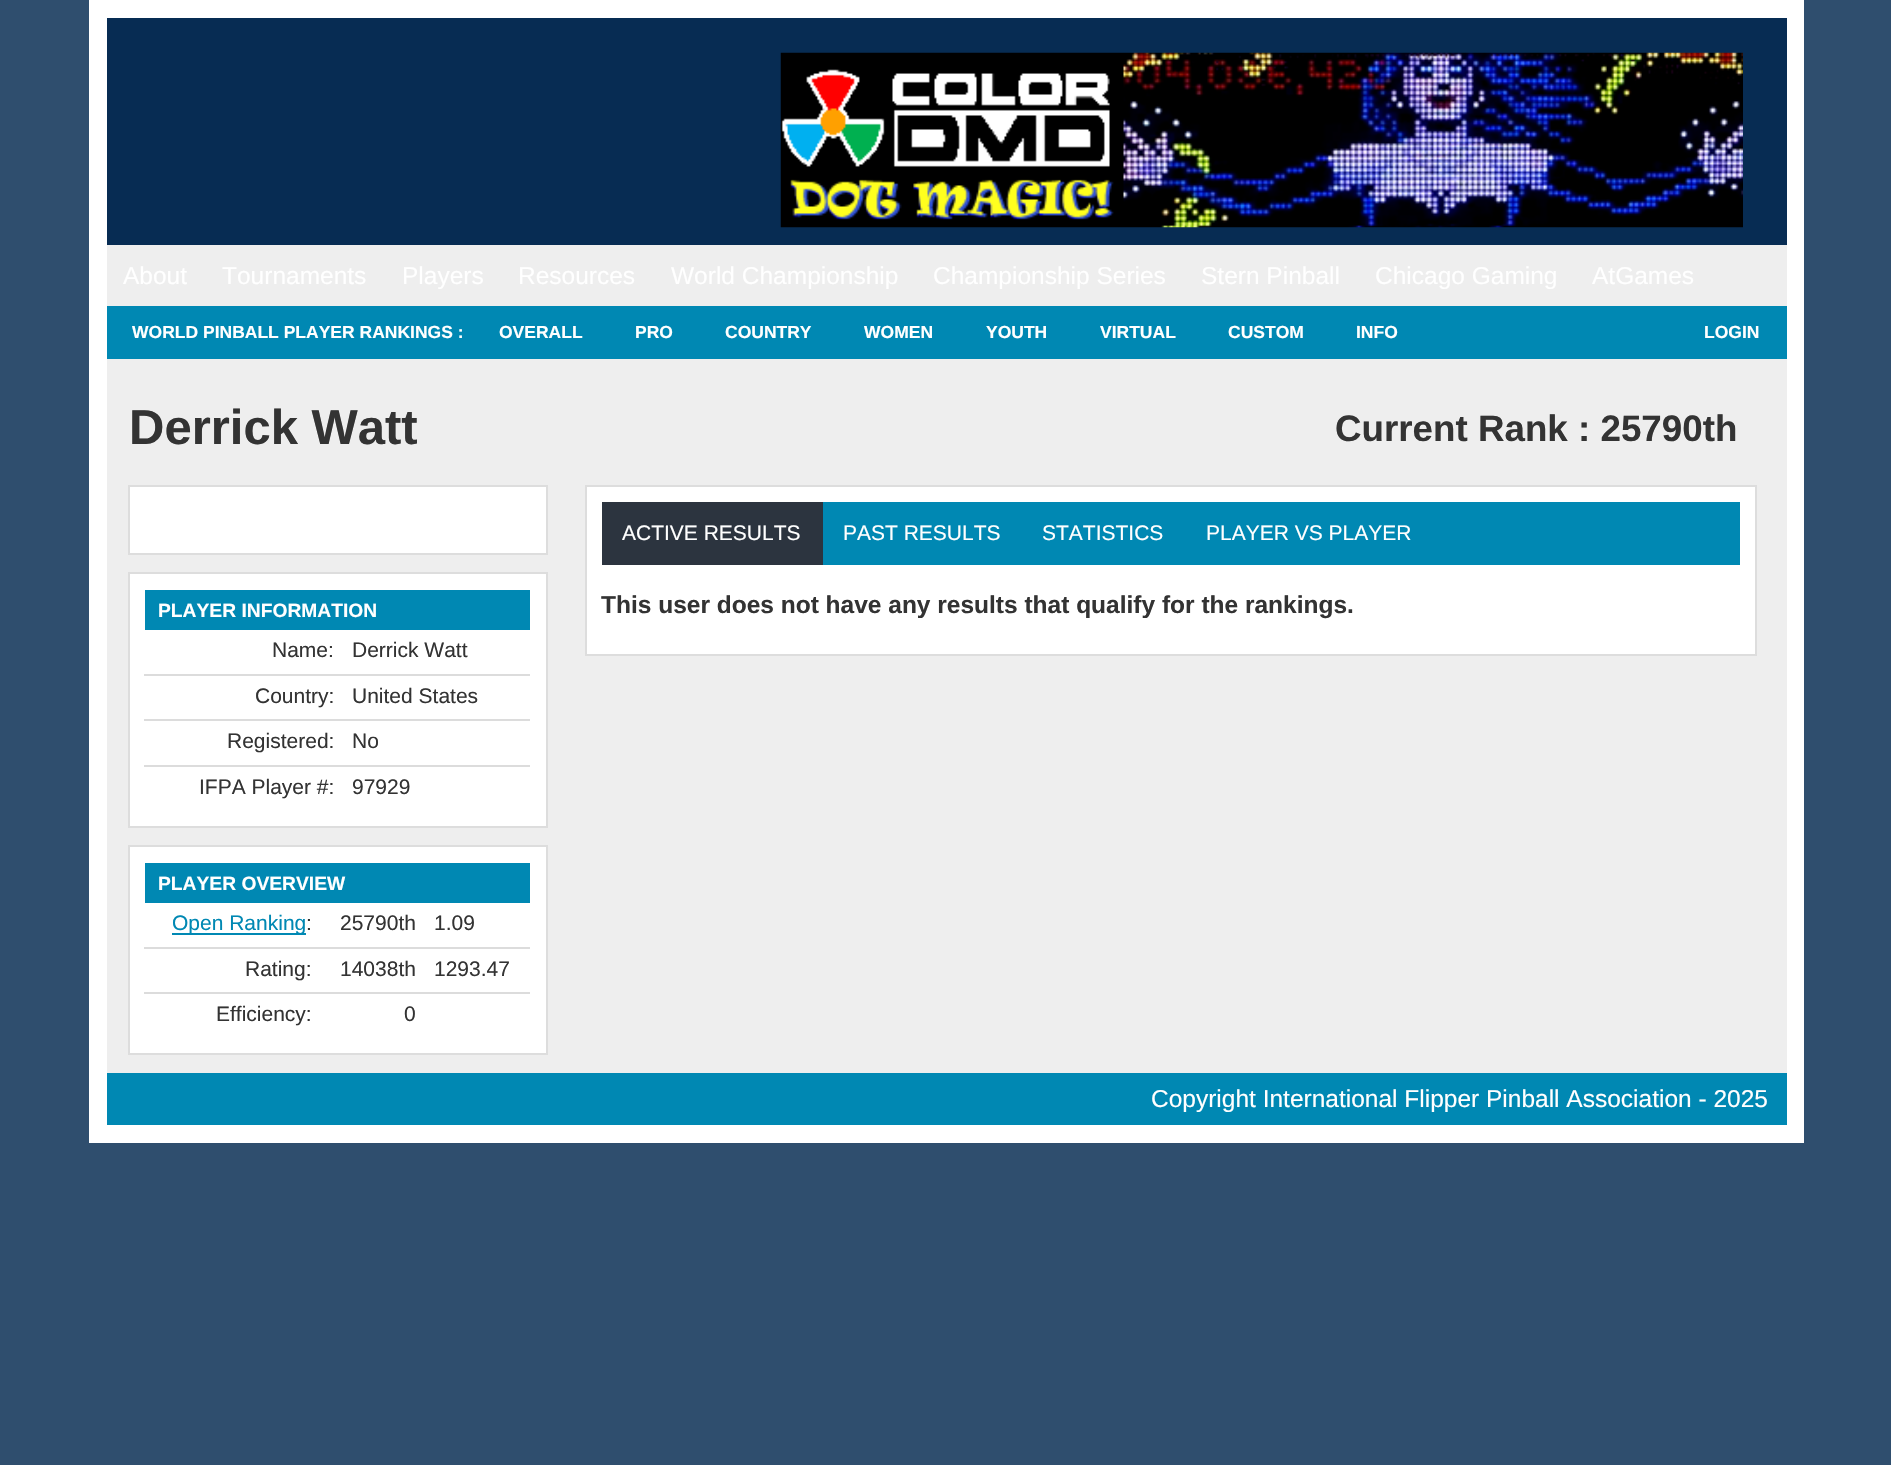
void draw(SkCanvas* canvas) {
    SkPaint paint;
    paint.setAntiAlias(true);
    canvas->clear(0xFF2F4E6E);
    paint.setColor(0xFFEEEEEE);
    canvas->drawRect(SkRect::MakeXYWH(107, 245, 1680, 61), paint);
    paint.setColor(0xFFFFFFFF);
    canvas->drawRect(SkRect::MakeXYWH(107, 0, 1680, 18), paint);
    paint.setColor(0xFF072C53);
    canvas->drawRect(SkRect::MakeXYWH(107, 18, 1680, 227), paint);
    canvas->drawImageRect(SkImages::DeferredFromEncodedData(SkData::MakeFromFileName("img1.png")), SkRect::MakeXYWH(780, 52, 963, 176), SkSamplingOptions());
    SkFont font1(fontMgr->matchFamilyStyle("Liberation Sans", SkFontStyle::Normal()), 24.5f);
    font1.setSubpixel(true);
    paint.setColor(0xFFFFFFFF);
    canvas->drawString("About", 123, 284, font1, paint);
    canvas->drawString("Tournaments", 222, 284, font1, paint);
    canvas->drawString("Players", 402, 284, font1, paint);
    canvas->drawString("Resources", 518, 284, font1, paint);
    canvas->drawString("World Championship", 671, 284, font1, paint);
    canvas->drawString("Championship Series", 933, 284, font1, paint);
    canvas->drawString("Stern Pinball", 1201, 284, font1, paint);
    canvas->drawString("Chicago Gaming", 1375, 284, font1, paint);
    canvas->drawString("AtGames", 1592, 284, font1, paint);
    paint.setColor(0xFF0088B3);
    canvas->drawRect(SkRect::MakeXYWH(107, 306, 1680, 53), paint);
    SkFont font2(fontMgr->matchFamilyStyle("Liberation Sans", SkFontStyle::Bold()), 17.5f);
    font2.setSubpixel(true);
    paint.setColor(0xFFFFFFFF);
    canvas->drawString("WORLD PINBALL PLAYER RANKINGS :", 132, 338, font2, paint);
    canvas->drawString("OVERALL", 499, 338, font2, paint);
    canvas->drawString("PRO", 635, 338, font2, paint);
    canvas->drawString("COUNTRY", 725, 338, font2, paint);
    canvas->drawString("WOMEN", 864, 338, font2, paint);
    canvas->drawString("YOUTH", 986, 338, font2, paint);
    canvas->drawString("VIRTUAL", 1100, 338, font2, paint);
    canvas->drawString("CUSTOM", 1228, 338, font2, paint);
    canvas->drawString("INFO", 1356, 338, font2, paint);
    canvas->drawString("LOGIN", 1704, 338, font2, paint);
    paint.setColor(0xFFEEEEEE);
    canvas->drawRect(SkRect::MakeXYWH(107, 359, 1680, 714), paint);
    paint.setColor(0xFFFFFFFF);
    canvas->drawRect(SkRect::MakeXYWH(1787, 0, 17, 1125), paint);
    canvas->drawRect(SkRect::MakeXYWH(89, 0, 18, 1143), paint);
    SkFont font3(fontMgr->matchFamilyStyle("Liberation Sans", SkFontStyle::Bold()), 49);
    font3.setSubpixel(true);
    paint.setColor(0xFF333333);
    canvas->drawString("Derrick Watt", 129, 444, font3, paint);
    SkFont font4(fontMgr->matchFamilyStyle("Liberation Sans", SkFontStyle::Bold()), 36.75f);
    font4.setSubpixel(true);
    canvas->drawString("Current Rank : 25790th", 1335, 441, font4, paint);
    paint.setColor(0xFFFFFFFF);
    canvas->drawRect(SkRect::MakeXYWH(586, 486, 1170, 169), paint);
    paint.setStyle(SkPaint::kStroke_Style);
    paint.setStrokeWidth(2);
    paint.setColor(0xFFDDDDDD);
    canvas->drawRect(SkRect::MakeXYWH(586, 486, 1170, 169), paint);
    paint.setStyle(SkPaint::kFill_Style);
    paint.setColor(0xFF0088B3);
    canvas->drawRect(SkRect::MakeXYWH(823, 502, 917, 63), paint);
    paint.setColor(0xFF2C343F);
    canvas->drawRect(SkRect::MakeXYWH(602, 502, 221, 63), paint);
    SkFont font5(fontMgr->matchFamilyStyle("Liberation Sans", SkFontStyle::Normal()), 21);
    font5.setSubpixel(true);
    paint.setColor(0xFFFFFFFF);
    canvas->drawString("ACTIVE RESULTS", 622, 540, font5, paint);
    canvas->drawString("PAST RESULTS", 843, 540, font5, paint);
    canvas->drawString("STATISTICS", 1042, 540, font5, paint);
    canvas->drawString("PLAYER VS PLAYER", 1206, 540, font5, paint);
    SkFont font6(fontMgr->matchFamilyStyle("Liberation Sans", SkFontStyle::Bold()), 24.5f);
    font6.setSubpixel(true);
    paint.setColor(0xFF333333);
    canvas->drawString("This user does not have any results that qualify for the rankings.", 601, 613, font6, paint);
    paint.setColor(0xFFFFFFFF);
    canvas->drawRect(SkRect::MakeXYWH(129, 486, 418, 68), paint);
    paint.setStyle(SkPaint::kStroke_Style);
    paint.setColor(0xFFDDDDDD);
    canvas->drawRect(SkRect::MakeXYWH(129, 486, 418, 68), paint);
    paint.setStyle(SkPaint::kFill_Style);
    paint.setColor(0xFFFFFFFF);
    canvas->drawRect(SkRect::MakeXYWH(129, 573, 418, 254), paint);
    paint.setStyle(SkPaint::kStroke_Style);
    paint.setColor(0xFFDDDDDD);
    canvas->drawRect(SkRect::MakeXYWH(129, 573, 418, 254), paint);
    paint.setStyle(SkPaint::kFill_Style);
    paint.setColor(0xFF0088B3);
    canvas->drawRect(SkRect::MakeXYWH(145, 590, 385, 40), paint);
    SkFont font7(fontMgr->matchFamilyStyle("Liberation Sans", SkFontStyle::Bold()), 19.25f);
    font7.setSubpixel(true);
    paint.setColor(0xFFFFFFFF);
    canvas->drawString("PLAYER INFORMATION", 158, 617, font7, paint);
    paint.setColor(0xFF333333);
    canvas->drawString("Name:", 272, 657, font5, paint);
    paint.setColor(0xFFDCDCDC);
    canvas->drawRect(SkRect::MakeXYWH(144, 674, 386, 2), paint);
    paint.setColor(0xFF333333);
    canvas->drawString("Derrick Watt", 352, 657, font5, paint);
    canvas->drawString("Country:", 255, 703, font5, paint);
    paint.setColor(0xFFDCDCDC);
    canvas->drawRect(SkRect::MakeXYWH(144, 719, 386, 2), paint);
    paint.setColor(0xFF333333);
    canvas->drawString("United States", 352, 703, font5, paint);
    canvas->drawString("Registered:", 227, 748, font5, paint);
    paint.setColor(0xFFDCDCDC);
    canvas->drawRect(SkRect::MakeXYWH(144, 765, 386, 2), paint);
    paint.setColor(0xFF333333);
    canvas->drawString("No", 352, 748, font5, paint);
    canvas->drawString("IFPA Player #:", 199, 794, font5, paint);
    canvas->drawString("97929", 352, 794, font5, paint);
    paint.setColor(0xFFFFFFFF);
    canvas->drawRect(SkRect::MakeXYWH(129, 846, 418, 208), paint);
    paint.setStyle(SkPaint::kStroke_Style);
    paint.setColor(0xFFDDDDDD);
    canvas->drawRect(SkRect::MakeXYWH(129, 846, 418, 208), paint);
    paint.setStyle(SkPaint::kFill_Style);
    paint.setColor(0xFF0088B3);
    canvas->drawRect(SkRect::MakeXYWH(145, 863, 385, 40), paint);
    paint.setColor(0xFFFFFFFF);
    canvas->drawString("PLAYER OVERVIEW", 158, 890, font7, paint);
    paint.setColor(0xFF0088B3);
    canvas->drawRect(SkRect::MakeXYWH(172, 933, 134, 2), paint);
    canvas->drawString("Open Ranking", 172, 930, font5, paint);
    paint.setColor(0xFF333333);
    canvas->drawString(":", 306, 930, font5, paint);
    canvas->drawString("25790th", 340, 930, font5, paint);
    paint.setColor(0xFFDCDCDC);
    canvas->drawRect(SkRect::MakeXYWH(144, 947, 386, 2), paint);
    paint.setColor(0xFF333333);
    canvas->drawString("1.09", 434, 930, font5, paint);
    canvas->drawString("Rating:", 245, 976, font5, paint);
    canvas->drawString("14038th", 340, 976, font5, paint);
    paint.setColor(0xFFDCDCDC);
    canvas->drawRect(SkRect::MakeXYWH(144, 992, 386, 2), paint);
    paint.setColor(0xFF333333);
    canvas->drawString("1293.47", 434, 976, font5, paint);
    canvas->drawString("Efficiency:", 216, 1021, font5, paint);
    canvas->drawString("0", 404, 1021, font5, paint);
    paint.setColor(0xFF0088B3);
    canvas->drawRect(SkRect::MakeXYWH(107, 1073, 1680, 52), paint);
    paint.setColor(0xFFFFFFFF);
    canvas->drawRect(SkRect::MakeXYWH(107, 1125, 1697, 18), paint);
    canvas->drawString("Copyright International Flipper Pinball Association - 2025", 1151, 1107, font1, paint);
}
